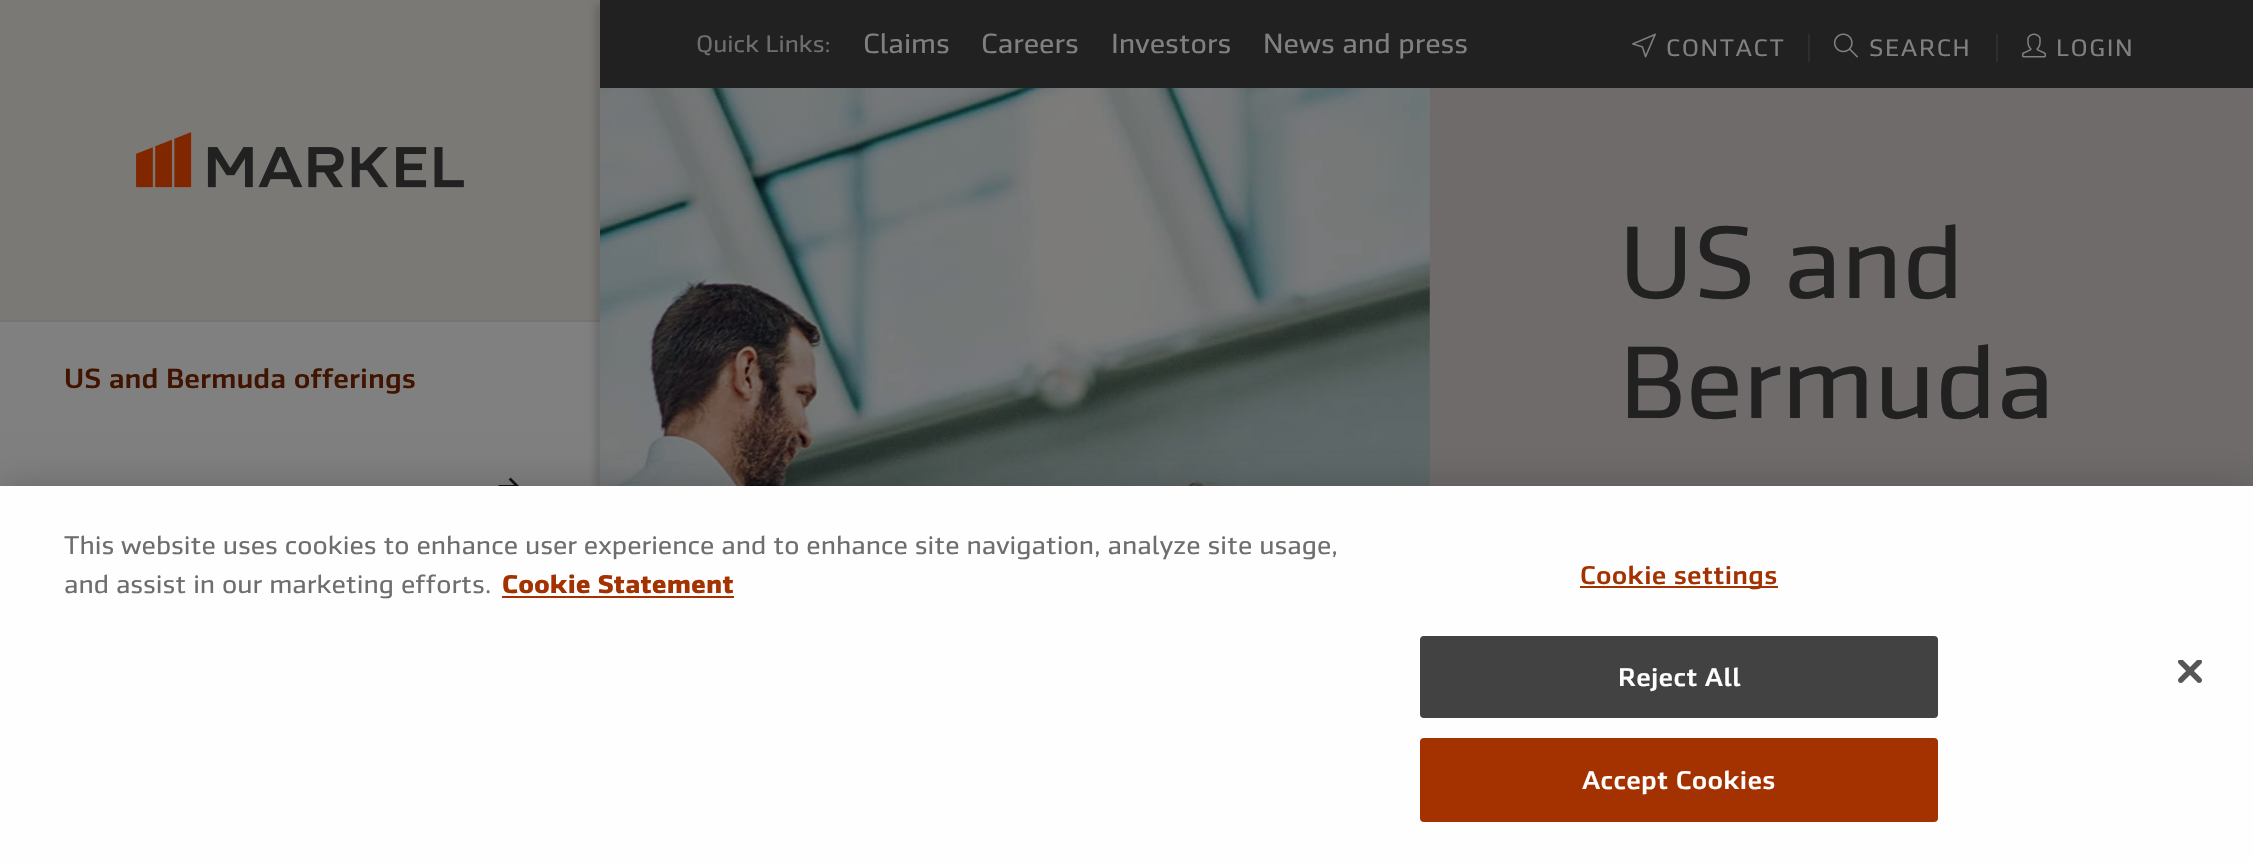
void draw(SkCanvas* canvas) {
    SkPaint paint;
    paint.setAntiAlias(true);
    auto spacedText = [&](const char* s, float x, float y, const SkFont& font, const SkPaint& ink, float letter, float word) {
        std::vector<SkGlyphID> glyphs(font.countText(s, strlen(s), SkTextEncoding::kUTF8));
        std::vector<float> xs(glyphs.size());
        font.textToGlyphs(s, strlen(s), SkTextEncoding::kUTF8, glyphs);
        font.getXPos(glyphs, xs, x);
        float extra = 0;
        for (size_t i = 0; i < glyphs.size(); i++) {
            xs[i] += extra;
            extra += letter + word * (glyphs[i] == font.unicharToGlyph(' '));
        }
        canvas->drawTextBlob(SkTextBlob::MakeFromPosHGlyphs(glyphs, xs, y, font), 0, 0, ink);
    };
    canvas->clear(0xFF7A7976);
    canvas->drawImageRect(SkImages::DeferredFromEncodedData(SkData::MakeFromFileName("img1.png")), SkRect::MakeXYWH(136, 132, 328, 56), SkSamplingOptions());
    paint.setColor(0xFF808080);
    canvas->drawRect(SkRect::MakeXYWH(0, 322, 600, 164), paint);
    paint.setColor(0xFF757373);
    canvas->drawRect(SkRect::MakeXYWH(0, 320, 600, 2), paint);
    SkFont font1(fontMgr->matchFamilyStyle("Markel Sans", SkFontStyle(500, SkFontStyle::kNormal_Width, SkFontStyle::kUpright_Slant)), 28);
    font1.setSubpixel(true);
    paint.setColor(0xFF401400);
    canvas->drawString("US and Bermuda offerings", 64, 388, font1, paint);
    canvas->drawImageRect(SkImages::DeferredFromEncodedData(SkData::MakeFromFileName("img2.png")), SkRect::MakeXYWH(498, 477, 21, 9), SkSamplingOptions());
    paint.setColor(0x33000000);
    paint.setMaskFilter(SkMaskFilter::MakeBlur(kNormal_SkBlurStyle, 4));
    canvas->drawRect(SkRect::MakeXYWH(596, 4, 8, 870), paint);
    paint.setMaskFilter(nullptr);
    paint.setColor(0xFF212121);
    canvas->drawRect(SkRect::MakeXYWH(600, 0, 1653, 88), paint);
    SkFont font2(fontMgr->matchFamilyStyle("Markel Sans", SkFontStyle::Normal()), 24);
    font2.setSubpixel(true);
    paint.setColor(0xFF6E6E6E);
    canvas->drawString("Quick Links:", 696, 52, font2, paint);
    SkFont font3(fontMgr->matchFamilyStyle("Markel Sans", SkFontStyle::Normal()), 28);
    font3.setSubpixel(true);
    paint.setColor(0xFF808080);
    canvas->drawString("Claims", 863, 53, font3, paint);
    canvas->drawString("Careers", 981, 53, font3, paint);
    canvas->drawString("Investors", 1111, 53, font3, paint);
    canvas->drawString("News and press", 1263, 53, font3, paint);
    canvas->drawImageRect(SkImages::DeferredFromEncodedData(SkData::MakeFromFileName("img3.png")), SkRect::MakeXYWH(1632, 33, 24, 25), SkSamplingOptions());
    spacedText("CONTACT", 1666, 56, font2, paint, 1.5f, 0);
    paint.setColor(0xFF2E2E2E);
    canvas->drawRect(SkRect::MakeXYWH(1808, 34, 2, 28), paint);
    canvas->drawImageRect(SkImages::DeferredFromEncodedData(SkData::MakeFromFileName("img4.png")), SkRect::MakeXYWH(1833, 33, 25, 25), SkSamplingOptions());
    paint.setColor(0xFF808080);
    spacedText("SEARCH", 1869, 56, font2, paint, 1.5f, 0);
    paint.setColor(0xFF2E2E2E);
    canvas->drawRect(SkRect::MakeXYWH(1996, 34, 2, 28), paint);
    canvas->drawImageRect(SkImages::DeferredFromEncodedData(SkData::MakeFromFileName("img5.png")), SkRect::MakeXYWH(2022, 33, 24, 25), SkSamplingOptions());
    paint.setColor(0xFF808080);
    spacedText("LOGIN", 2056, 56, font2, paint, 1.5f, 0);
    paint.setColor(0xFF6E6B6A);
    canvas->drawRect(SkRect::MakeXYWH(1429, 88, 824, 398), paint);
    canvas->drawImageRect(SkImages::DeferredFromEncodedData(SkData::MakeFromFileName("img6.png")), SkRect::MakeXYWH(600, 88, 830, 398), SkSamplingOptions());
    SkFont font4(fontMgr->matchFamilyStyle("Markel Sans", SkFontStyle::Normal()), 104);
    font4.setSubpixel(true);
    paint.setColor(0xFF212121);
    canvas->drawString("US and", 1619, 298, font4, paint);
    canvas->drawString("Bermuda", 1619, 418, font4, paint);
    paint.setColor(0x33000000);
    paint.setMaskFilter(SkMaskFilter::MakeBlur(kNormal_SkBlurStyle, 18));
    canvas->drawRect(SkRect::MakeXYWH(0, 486, 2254, 376), paint);
    paint.setMaskFilter(nullptr);
    paint.setColor(0xFFFEFEFE);
    canvas->drawRect(SkRect::MakeXYWH(0, 486, 2253, 376), paint);
    SkFont font5(fontMgr->matchFamilyStyle("Markel Sans", SkFontStyle::Normal()), 26);
    font5.setSubpixel(true);
    paint.setColor(0xFF6E6E6E);
    canvas->drawString("This website uses cookies to enhance user experience and to enhance site navigation, analyze site usage,", 64, 554, font5, paint);
    canvas->drawString("and assist in our marketing efforts.", 64, 593, font5, paint);
    SkFont font6(fontMgr->matchFamilyStyle("Markel Sans", SkFontStyle::Bold()), 26);
    font6.setSubpixel(true);
    paint.setColor(0xFFA33200);
    canvas->drawString("Cookie Statement", 502, 593, font6, paint);
    canvas->drawRect(SkRect::MakeXYWH(502, 596, 232, 2), paint);
    canvas->drawRect(SkRect::MakeXYWH(1580, 586, 198, 2), paint);
    SkFont font7(fontMgr->matchFamilyStyle("Markel Sans", SkFontStyle(500, SkFontStyle::kNormal_Width, SkFontStyle::kUpright_Slant)), 26);
    font7.setSubpixel(true);
    spacedText("Cookie settings", 1580, 584, font7, paint, 0.25f, 0);
    paint.setColor(0xFF424242);
    canvas->drawRoundRect(SkRect::MakeXYWH(1421, 637, 516, 80), 3, 3, paint);
    paint.setStyle(SkPaint::kStroke_Style);
    paint.setStrokeWidth(2);
    canvas->drawRoundRect(SkRect::MakeXYWH(1421, 637, 516, 80), 3, 3, paint);
    paint.setStyle(SkPaint::kFill_Style);
    paint.setColor(0xFFFEFEFE);
    spacedText("Reject All", 1618, 686, font7, paint, 0.25f, 0);
    paint.setColor(0xFFA33200);
    canvas->drawRoundRect(SkRect::MakeXYWH(1421, 739, 516, 82), 3, 3, paint);
    paint.setStyle(SkPaint::kStroke_Style);
    canvas->drawRoundRect(SkRect::MakeXYWH(1421, 739, 516, 82), 3, 3, paint);
    paint.setStyle(SkPaint::kFill_Style);
    paint.setColor(0xFFFEFEFE);
    spacedText("Accept Cookies", 1582, 789, font7, paint, 0.25f, 0);
    canvas->drawImageRect(SkImages::DeferredFromEncodedData(SkData::MakeFromFileName("img7.png")), SkRect::MakeXYWH(2178, 660, 24, 23), SkSamplingOptions());
}
